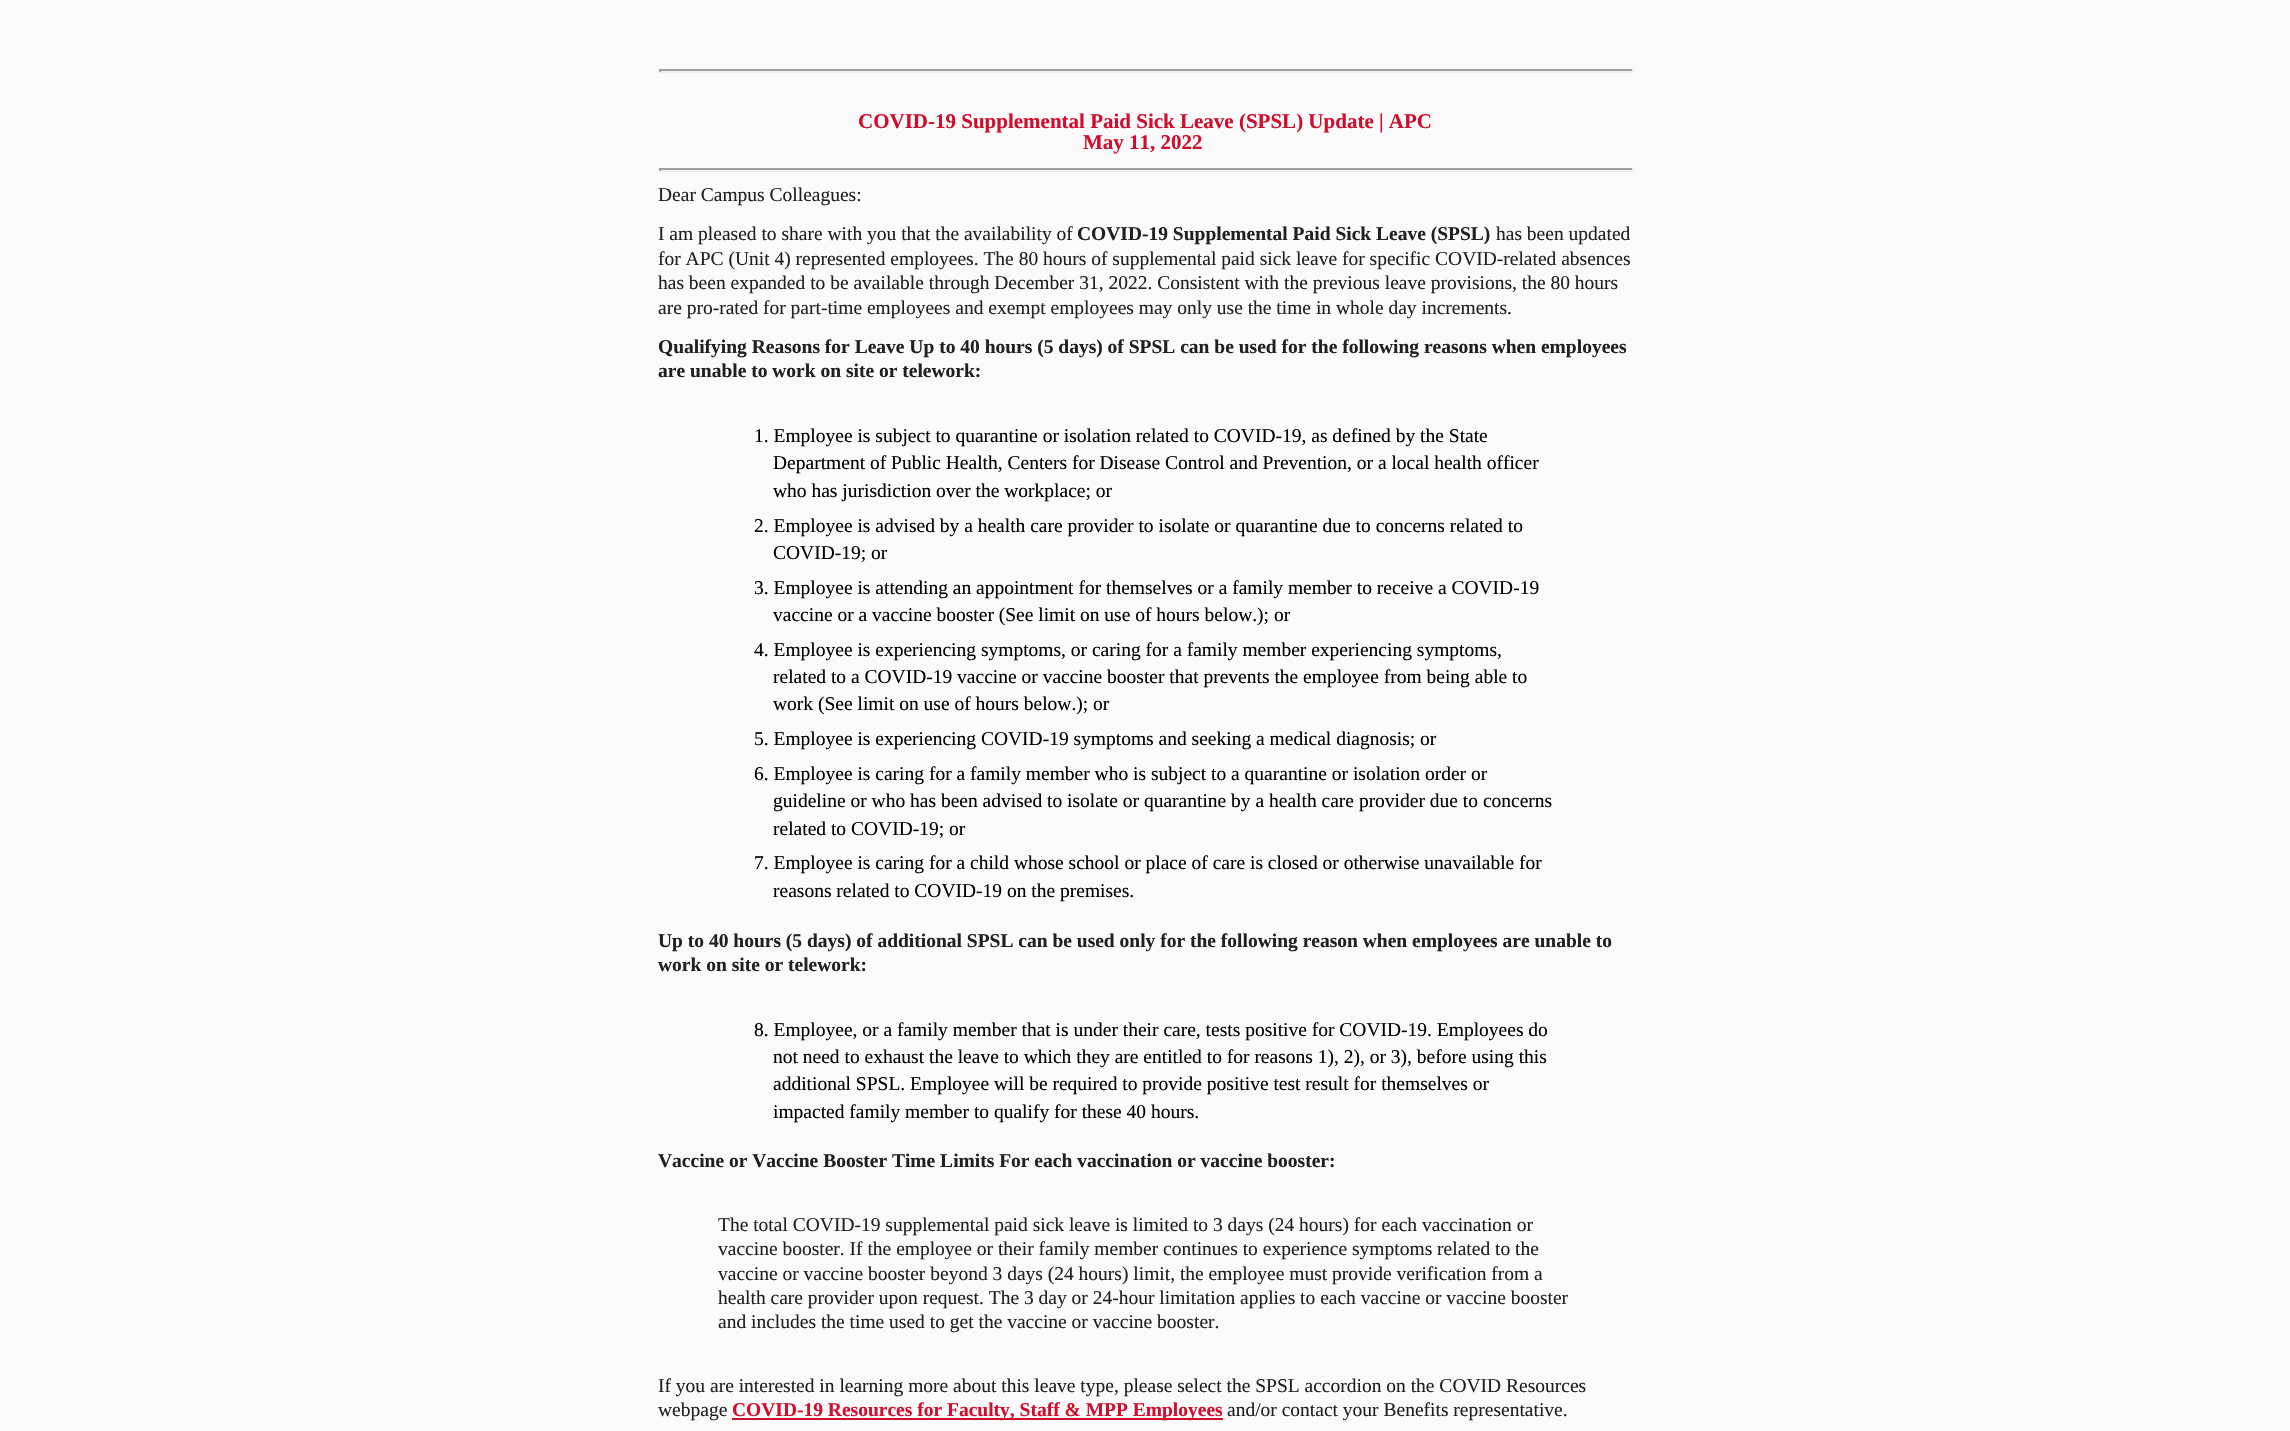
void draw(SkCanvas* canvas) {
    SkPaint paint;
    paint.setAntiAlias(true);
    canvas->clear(0xFFFAFAFA);
    paint.setColor(0xFF9F9F9F);
    canvas->drawRect(SkRect::MakeXYWH(659, 69, 975, 2), paint);
    paint.setColor(0xFFEEEEEE);
    canvas->drawRect(SkRect::MakeXYWH(1632, 69, 2, 3), paint);
    canvas->drawRect(SkRect::MakeXYWH(659, 71, 975, 2), paint);
    paint.setColor(0xFF9F9F9F);
    canvas->drawRect(SkRect::MakeXYWH(659, 69, 2, 3), paint);
    SkFont font1(fontMgr->matchFamilyStyle("Liberation Serif", SkFontStyle::Bold()), 21);
    font1.setSubpixel(true);
    paint.setColor(0xFFD00D2D);
    canvas->drawString("COVID-19 Supplemental Paid Sick Leave (SPSL) Update | APC", 858, 128, font1, paint);
    canvas->drawString("May 11, 2022", 1083, 149, font1, paint);
    paint.setColor(0xFF9F9F9F);
    canvas->drawRect(SkRect::MakeXYWH(659, 168, 975, 2), paint);
    paint.setColor(0xFFEEEEEE);
    canvas->drawRect(SkRect::MakeXYWH(1632, 168, 2, 3), paint);
    canvas->drawRect(SkRect::MakeXYWH(659, 170, 975, 2), paint);
    paint.setColor(0xFF9F9F9F);
    canvas->drawRect(SkRect::MakeXYWH(659, 168, 2, 3), paint);
    SkFont font2(fontMgr->matchFamilyStyle("Liberation Serif", SkFontStyle::Normal()), 19.5f);
    font2.setSubpixel(true);
    paint.setColor(0xFF202020);
    canvas->drawString("Dear Campus Colleagues:", 658, 201, font2, paint);
    canvas->drawString("I am pleased to share with you that the availability of", 658, 240, font2, paint);
    SkFont font3(fontMgr->matchFamilyStyle("Liberation Serif", SkFontStyle::Bold()), 19.5f);
    font3.setSubpixel(true);
    canvas->drawString("COVID-19 Supplemental Paid Sick Leave (SPSL)", 1077, 240, font3, paint);
    canvas->drawString("has been updated", 1496, 240, font2, paint);
    canvas->drawString("for APC (Unit 4) represented employees. The 80 hours of supplemental paid sick leave for specific COVID-related absences", 658, 265, font2, paint);
    canvas->drawString("has been expanded to be available through December 31, 2022. Consistent with the previous leave provisions, the 80 hours", 658, 289, font2, paint);
    canvas->drawString("are pro-rated for part-time employees and exempt employees may only use the time in whole day increments.", 658, 314, font2, paint);
    canvas->drawString("Qualifying Reasons for Leave Up to 40 hours (5 days) of SPSL can be used for the following reasons when employees", 658, 353, font3, paint);
    canvas->drawString("are unable to work on site or telework:", 658, 377, font3, paint);
    paint.setColor(0xFF000000);
    canvas->drawString("1. Employee is subject to quarantine or isolation related to COVID-19, as defined by the State", 754, 442, font2, paint);
    canvas->drawString("Department of Public Health, Centers for Disease Control and Prevention, or a local health officer", 773, 469, font2, paint);
    canvas->drawString("who has jurisdiction over the workplace; or", 773, 497, font2, paint);
    canvas->drawString("2. Employee is advised by a health care provider to isolate or quarantine due to concerns related to", 754, 532, font2, paint);
    canvas->drawString("COVID-19; or", 773, 559, font2, paint);
    canvas->drawString("3. Employee is attending an appointment for themselves or a family member to receive a COVID-19", 754, 594, font2, paint);
    canvas->drawString("vaccine or a vaccine booster (See limit on use of hours below.); or", 773, 621, font2, paint);
    canvas->drawString("4. Employee is experiencing symptoms, or caring for a family member experiencing symptoms,", 754, 656, font2, paint);
    canvas->drawString("related to a COVID-19 vaccine or vaccine booster that prevents the employee from being able to", 773, 683, font2, paint);
    canvas->drawString("work (See limit on use of hours below.); or", 773, 710, font2, paint);
    canvas->drawString("5. Employee is experiencing COVID-19 symptoms and seeking a medical diagnosis; or", 754, 745, font2, paint);
    canvas->drawString("6. Employee is caring for a family member who is subject to a quarantine or isolation order or", 754, 780, font2, paint);
    canvas->drawString("guideline or who has been advised to isolate or quarantine by a health care provider due to concerns", 773, 807, font2, paint);
    canvas->drawString("related to COVID-19; or", 773, 835, font2, paint);
    canvas->drawString("7. Employee is caring for a child whose school or place of care is closed or otherwise unavailable for", 754, 869, font2, paint);
    canvas->drawString("reasons related to COVID-19 on the premises.", 773, 897, font2, paint);
    paint.setColor(0xFF202020);
    canvas->drawString("Up to 40 hours (5 days) of additional SPSL can be used only for the following reason when employees are unable to", 658, 947, font3, paint);
    canvas->drawString("work on site or telework:", 658, 971, font3, paint);
    paint.setColor(0xFF000000);
    canvas->drawString("8. Employee, or a family member that is under their care, tests positive for COVID-19. Employees do", 754, 1036, font2, paint);
    canvas->drawString("not need to exhaust the leave to which they are entitled to for reasons 1), 2), or 3), before using this", 773, 1063, font2, paint);
    canvas->drawString("additional SPSL. Employee will be required to provide positive test result for themselves or", 773, 1090, font2, paint);
    canvas->drawString("impacted family member to qualify for these 40 hours.", 773, 1118, font2, paint);
    paint.setColor(0xFF202020);
    canvas->drawString("Vaccine or Vaccine Booster Time Limits For each vaccination or vaccine booster:", 658, 1167, font3, paint);
    canvas->drawString("The total COVID-19 supplemental paid sick leave is limited to 3 days (24 hours) for each vaccination or", 718, 1231, font2, paint);
    canvas->drawString("vaccine booster. If the employee or their family member continues to experience symptoms related to the", 718, 1255, font2, paint);
    canvas->drawString("vaccine or vaccine booster beyond 3 days (24 hours) limit, the employee must provide verification from a", 718, 1280, font2, paint);
    canvas->drawString("health care provider upon request. The 3 day or 24-hour limitation applies to each vaccine or vaccine booster", 718, 1304, font2, paint);
    canvas->drawString("and includes the time used to get the vaccine or vaccine booster.", 718, 1328, font2, paint);
    canvas->drawString("If you are interested in learning more about this leave type, please select the SPSL accordion on the COVID Resources", 658, 1392, font2, paint);
    canvas->drawString("webpage", 658, 1416, font2, paint);
    paint.setColor(0xFFD00D2D);
    canvas->drawRect(SkRect::MakeXYWH(732, 1418, 491, 2), paint);
    canvas->drawString("COVID-19 Resources for Faculty, Staff & MPP Employees", 732, 1416, font3, paint);
    paint.setColor(0xFF202020);
    canvas->drawString("and/or contact your Benefits representative.", 1227, 1416, font2, paint);
}
